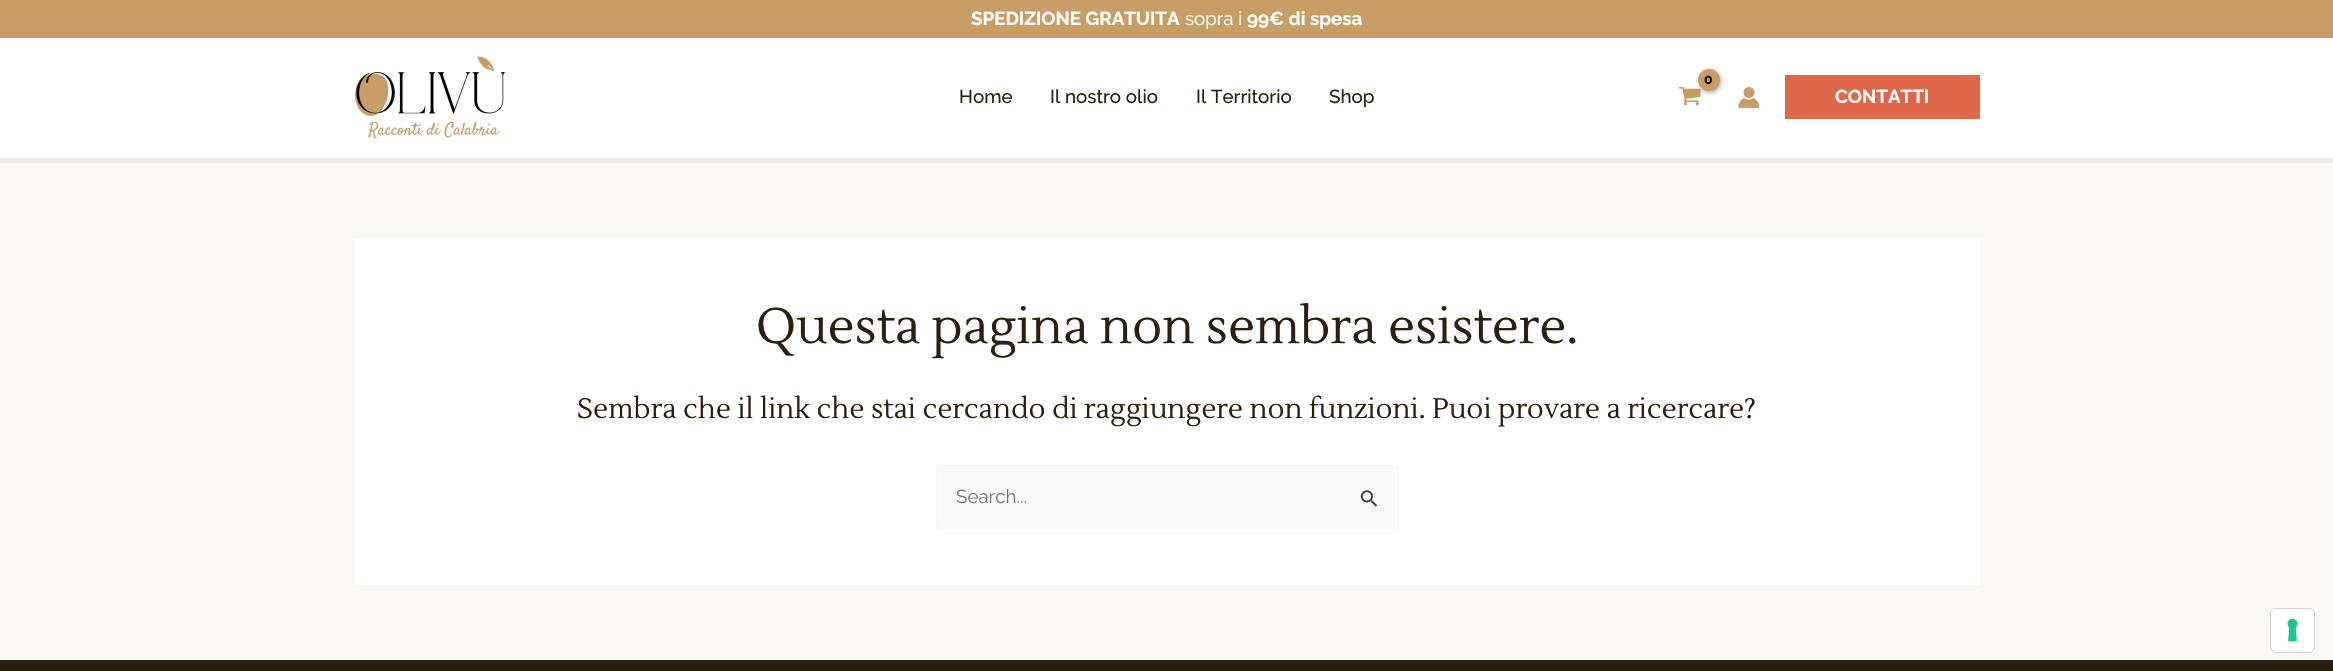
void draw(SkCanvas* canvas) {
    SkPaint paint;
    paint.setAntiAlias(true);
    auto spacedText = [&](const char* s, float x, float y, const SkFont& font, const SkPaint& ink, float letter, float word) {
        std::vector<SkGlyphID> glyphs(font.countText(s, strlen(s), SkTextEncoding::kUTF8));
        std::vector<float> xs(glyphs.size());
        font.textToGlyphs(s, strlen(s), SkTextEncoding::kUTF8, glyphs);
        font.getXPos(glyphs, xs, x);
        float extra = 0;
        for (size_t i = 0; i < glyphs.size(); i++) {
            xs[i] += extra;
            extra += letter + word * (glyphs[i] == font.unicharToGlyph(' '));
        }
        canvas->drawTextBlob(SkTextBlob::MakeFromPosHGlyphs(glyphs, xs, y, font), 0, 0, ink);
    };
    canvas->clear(0xFFF9F8F7);
    paint.setColor(0xFFC99D66);
    canvas->drawRect(SkRect::MakeXYWH(0, 0, 2333, 38), paint);
    SkFont font1(fontMgr->matchFamilyStyle("Raleway", SkFontStyle::Bold()), 18.75f);
    font1.setSubpixel(true);
    paint.setColor(0xFFFFFFFF);
    canvas->drawString("SPEDIZIONE GRATUITA", 971, 25, font1, paint);
    SkFont font2(fontMgr->matchFamilyStyle("Raleway", SkFontStyle::Normal()), 18.75f);
    font2.setSubpixel(true);
    canvas->drawString("sopra i", 1185, 25, font2, paint);
    canvas->drawString("99€ di spesa", 1247, 25, font1, paint);
    canvas->drawRect(SkRect::MakeXYWH(0, 38, 2333, 120), paint);
    paint.setColor(0xFFEAEAEA);
    canvas->drawRect(SkRect::MakeXYWH(0, 158, 2333, 5), paint);
    canvas->drawImageRect(SkImages::DeferredFromEncodedData(SkData::MakeFromFileName("img1.png")), SkRect::MakeXYWH(355, 56, 150, 83), SkSamplingOptions());
    SkFont font3(fontMgr->matchFamilyStyle("Raleway", SkFontStyle(500, SkFontStyle::kNormal_Width, SkFontStyle::kUpright_Slant)), 18.75f);
    font3.setSubpixel(true);
    paint.setColor(0xFF2B1F0F);
    canvas->drawString("Home", 959, 103, font3, paint);
    canvas->drawString("Il nostro olio", 1050, 103, font3, paint);
    canvas->drawString("Il Territorio", 1196, 103, font3, paint);
    canvas->drawString("Shop", 1329, 103, font3, paint);
    canvas->drawImageRect(SkImages::DeferredFromEncodedData(SkData::MakeFromFileName("img2.png")), SkRect::MakeXYWH(1678, 87, 23, 19), SkSamplingOptions());
    paint.setColor(0x4D000000);
    paint.setMaskFilter(SkMaskFilter::MakeBlur(kNormal_SkBlurStyle, 2));
    canvas->drawRoundRect(SkRect::MakeXYWH(1699, 70, 22, 23), 11, 11, paint);
    paint.setMaskFilter(nullptr);
    paint.setColor(0xFFC99D66);
    canvas->drawCircle(1709, 80, 11, paint);
    SkFont font4(fontMgr->matchFamilyStyle("Raleway", SkFontStyle::Bold()), 14);
    font4.setSubpixel(true);
    paint.setColor(0xFF000000);
    spacedText("0", 1704, 84, font4, paint, -1, 0);
    canvas->drawImageRect(SkImages::DeferredFromEncodedData(SkData::MakeFromFileName("img3.png")), SkRect::MakeXYWH(1738, 87, 22, 22), SkSamplingOptions());
    paint.setColor(0xFFE0684A);
    canvas->drawRect(SkRect::MakeXYWH(1785, 75, 195, 44), paint);
    paint.setColor(0xFFFFFFFF);
    canvas->drawString("CONTATTI", 1835, 103, font1, paint);
    canvas->drawRect(SkRect::MakeXYWH(355, 238, 1625, 347), paint);
    SkFont font5(fontMgr->matchFamilyStyle("Lustria", SkFontStyle::Normal()), 50);
    font5.setSubpixel(true);
    paint.setColor(0xFF2B1F0F);
    canvas->drawString("Questa pagina non sembra esistere.", 756, 343, font5, paint);
    SkFont font6(fontMgr->matchFamilyStyle("Lustria", SkFontStyle::Normal()), 28.1f);
    font6.setSubpixel(true);
    canvas->drawString("Sembra che il link che stai cercando di raggiungere non funzioni. Puoi provare a ricercare?", 577, 418, font6, paint);
    paint.setColor(0xFFFAFAFA);
    canvas->drawRoundRect(SkRect::MakeXYWH(936.5f, 465.5f, 462, 63), 2, 2, paint);
    paint.setStyle(SkPaint::kStroke_Style);
    paint.setStrokeWidth(1);
    paint.setColor(0xFFF9F8F7);
    canvas->drawRoundRect(SkRect::MakeXYWH(936.5f, 465.5f, 462, 63), 2, 2, paint);
    paint.setStyle(SkPaint::kFill_Style);
    paint.setColor(0xFF757575);
    canvas->drawString("Search...", 956, 503, font2, paint);
    canvas->drawImageRect(SkImages::DeferredFromEncodedData(SkData::MakeFromFileName("img4.png")), SkRect::MakeXYWH(1360, 490, 18, 17), SkSamplingOptions());
    paint.setColor(0xFF2B1F0F);
    canvas->drawRect(SkRect::MakeXYWH(0, 660, 2333, 11), paint);
    paint.setStyle(SkPaint::kStroke_Style);
    paint.setColor(0xFFD4D3D2);
    canvas->drawRoundRect(SkRect::MakeXYWH(2270.5f, 608.5f, 44, 44), 5.5f, 5.5f, paint);
    paint.setStyle(SkPaint::kFill_Style);
    paint.setColor(0xFFFFFFFF);
    canvas->drawRoundRect(SkRect::MakeXYWH(2271, 609, 43, 42), 5, 5, paint);
    canvas->drawImageRect(SkImages::DeferredFromEncodedData(SkData::MakeFromFileName("img5.png")), SkRect::MakeXYWH(2287, 618, 11, 24), SkSamplingOptions());
}
